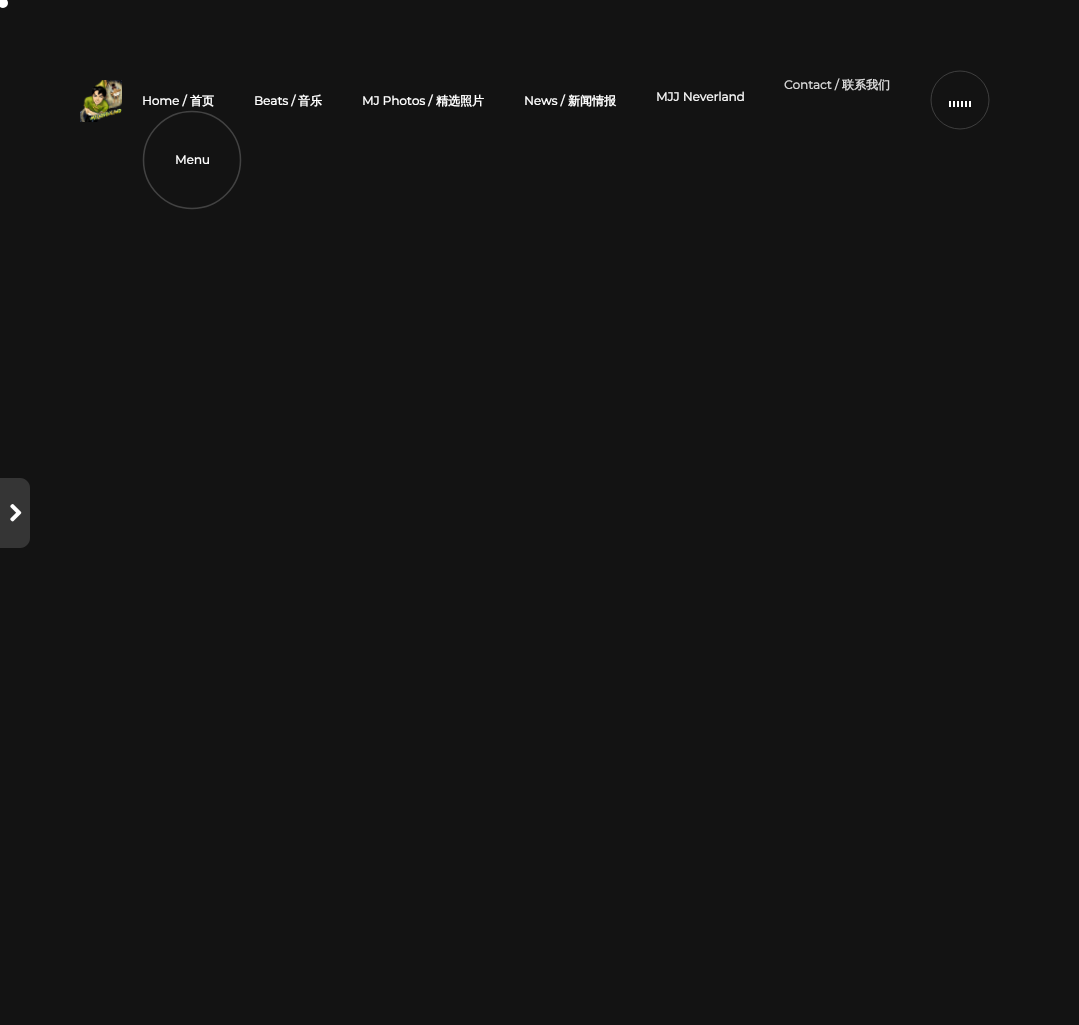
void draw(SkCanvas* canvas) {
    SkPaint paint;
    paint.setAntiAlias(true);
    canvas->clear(0xFF131313);
    paint.setColor(0xFFFFFFFF);
    canvas->drawCircle(3, 3, 5, paint);
    canvas->drawImageRect(SkImages::DeferredFromEncodedData(SkData::MakeFromFileName("img1.png")), SkRect::MakeXYWH(80, 80, 42, 42), SkSamplingOptions());
    SkFont font1(fontMgr->matchFamilyStyle("Montserrat", SkFontStyle::Bold()), 12);
    font1.setSubpixel(true);
    paint.setColor(0xFFD8D8D8);
    canvas->drawString("Contact /", 784, 89, font1, paint);
    SkFont font2(fontMgr->matchFamilyStyle("WenQuanYi Zen Hei", SkFontStyle::Bold()), 12);
    font2.setSubpixel(true);
    canvas->drawString("联系我们", 842, 89, font2, paint);
    paint.setColor(0xFFFFFFFF);
    canvas->drawString("Home /", 142, 105, font1, paint);
    canvas->drawString("首页", 190, 105, font2, paint);
    canvas->drawString("Beats /", 254, 105, font1, paint);
    canvas->drawString("音乐", 298, 105, font2, paint);
    canvas->drawString("MJ Photos /", 362, 105, font1, paint);
    canvas->drawString("精选照片", 436, 105, font2, paint);
    canvas->drawString("News /", 524, 105, font1, paint);
    canvas->drawString("新闻情报", 568, 105, font2, paint);
    paint.setColor(0xFFF6F6F6);
    canvas->drawString("MJJ Neverland", 656, 101, font1, paint);
    paint.setStyle(SkPaint::kStroke_Style);
    paint.setStrokeWidth(0.9f);
    paint.setColor(0xFF424242);
    canvas->drawCircle(960, 100, 29, paint);
    paint.setStyle(SkPaint::kFill_Style);
    paint.setColor(0xFFFFFFFF);
    canvas->drawRect(SkRect::MakeXYWH(949, 101, 2, 6), paint);
    canvas->drawRect(SkRect::MakeXYWH(953, 101, 2, 6), paint);
    canvas->drawRect(SkRect::MakeXYWH(957, 101, 2, 6), paint);
    canvas->drawRect(SkRect::MakeXYWH(961, 101, 2, 6), paint);
    canvas->drawRect(SkRect::MakeXYWH(965, 101, 2, 6), paint);
    canvas->drawRect(SkRect::MakeXYWH(969, 101, 2, 6), paint);
    paint.setStyle(SkPaint::kStroke_Style);
    paint.setStrokeWidth(1.5f);
    paint.setColor(0xFF424242);
    canvas->drawCircle(192, 160, 48.5f, paint);
    paint.setStyle(SkPaint::kFill_Style);
    paint.setColor(0xFFFFFFFF);
    canvas->drawString("Menu", 175, 164, font1, paint);
    paint.setColor(0xFF353535);
    canvas->drawPath(SkPathBuilder().moveTo(0, 478).lineTo(20, 478).cubicTo(25.5f, 478, 30, 482.5f, 30, 488).lineTo(30, 538).cubicTo(30, 543.5f, 25.5f, 548, 20, 548).lineTo(0, 548).close().detach(), paint);
    canvas->drawImageRect(SkImages::DeferredFromEncodedData(SkData::MakeFromFileName("img2.png")), SkRect::MakeXYWH(10, 504, 12, 18), SkSamplingOptions());
}
